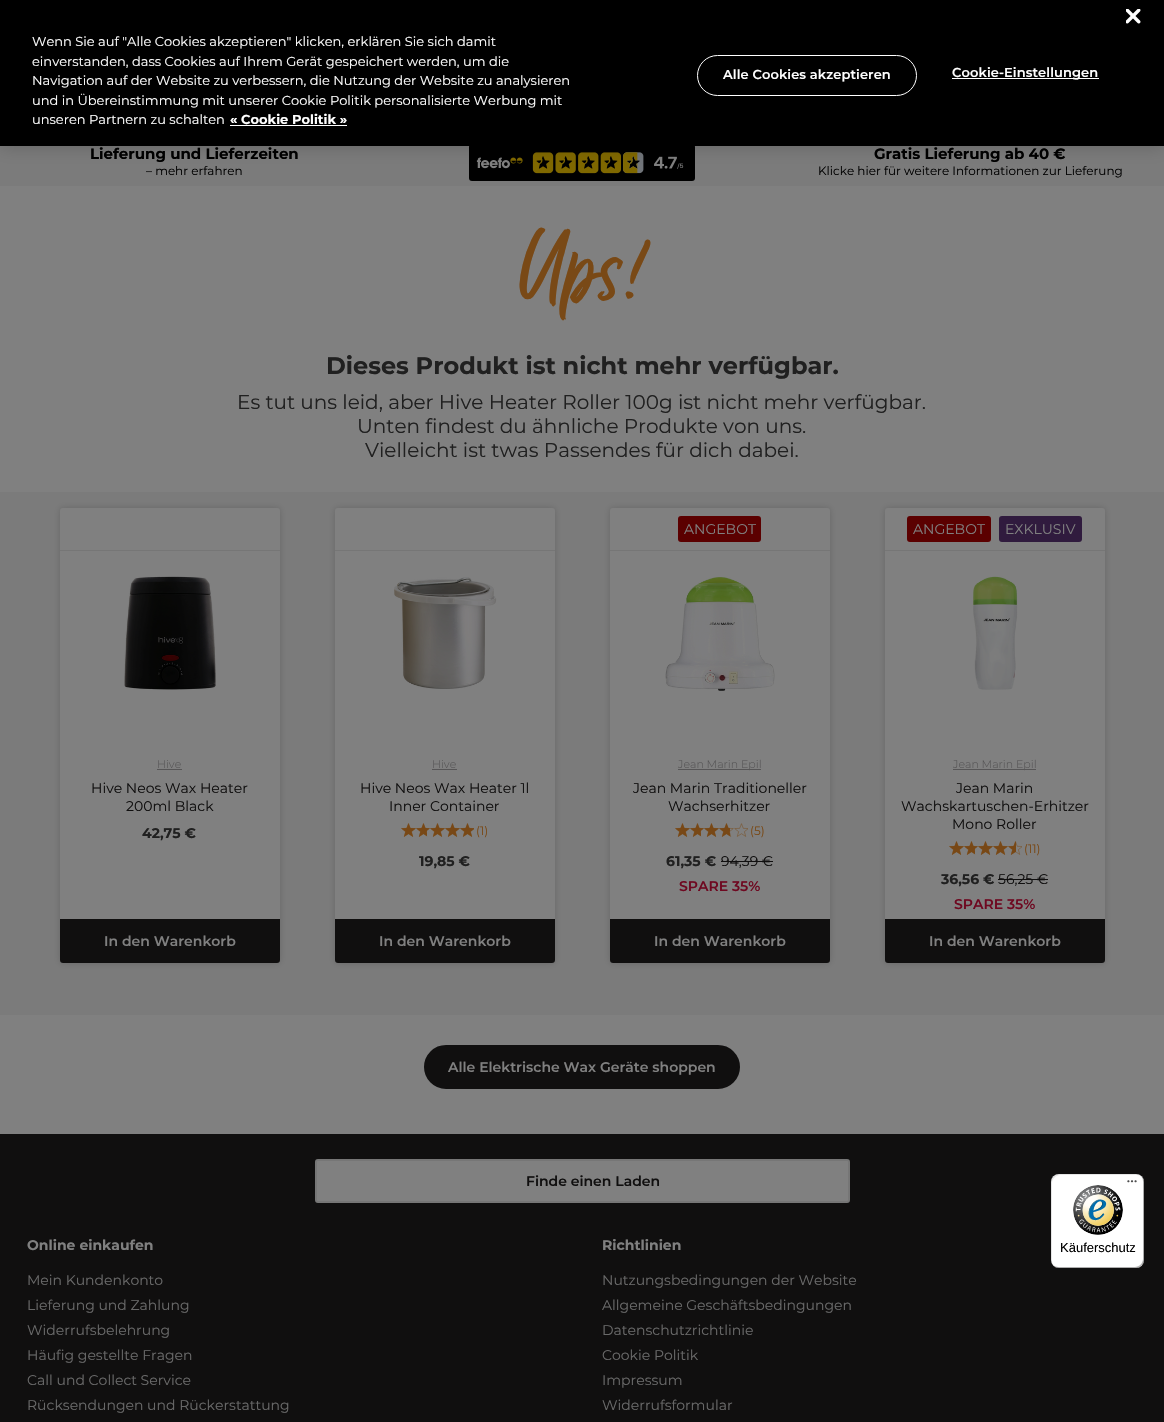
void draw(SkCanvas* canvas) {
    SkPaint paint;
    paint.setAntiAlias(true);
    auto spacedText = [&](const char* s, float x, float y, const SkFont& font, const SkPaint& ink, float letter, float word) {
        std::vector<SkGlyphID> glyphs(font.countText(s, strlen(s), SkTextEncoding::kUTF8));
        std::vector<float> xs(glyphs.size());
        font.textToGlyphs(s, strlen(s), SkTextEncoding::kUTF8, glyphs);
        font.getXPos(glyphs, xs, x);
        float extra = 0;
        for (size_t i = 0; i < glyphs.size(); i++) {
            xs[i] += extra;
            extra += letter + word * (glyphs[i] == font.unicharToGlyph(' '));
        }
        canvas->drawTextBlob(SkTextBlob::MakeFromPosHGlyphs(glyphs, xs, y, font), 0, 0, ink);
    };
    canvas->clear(0xFF808080);
    paint.setColor(0xFF7B7B7B);
    canvas->drawRect(SkRect::MakeXYWH(0, 146, 1164, 40), paint);
    paint.setColor(0xFF000000);
    canvas->drawRoundRect(SkRect::MakeXYWH(469, 144, 226, 37), 3, 3, paint);
    canvas->drawImageRect(SkImages::DeferredFromEncodedData(SkData::MakeFromFileName("img2.png")), SkRect::MakeXYWH(476, 152, 208, 22), SkSamplingOptions());
    paint.setColor(0x33000000);
    paint.setMaskFilter(SkMaskFilter::MakeBlur(kNormal_SkBlurStyle, 9));
    canvas->drawRect(SkRect::MakeXYWH(0, 0, 1164, 146), paint);
    paint.setMaskFilter(nullptr);
    paint.setColor(0xFF000000);
    canvas->drawRect(SkRect::MakeXYWH(0, 0, 1164, 146), paint);
    canvas->drawImageRect(SkImages::DeferredFromEncodedData(SkData::MakeFromFileName("img1.png")), SkRect::MakeXYWH(1126, 9, 15, 15), SkSamplingOptions());
    SkFont font1(fontMgr->matchFamilyStyle("Montserrat", SkFontStyle::Normal()), 13);
    font1.setSubpixel(true);
    paint.setColor(0xFFFFFFFF);
    canvas->drawString("Wenn Sie auf \"Alle Cookies akzeptieren\" klicken, erklären Sie sich damit", 32, 46, font1, paint);
    canvas->drawString("einverstanden, dass Cookies auf Ihrem Gerät gespeichert werden, um die", 32, 66, font1, paint);
    canvas->drawString("Navigation auf der Website zu verbessern, die Nutzung der Website zu analysieren", 32, 85, font1, paint);
    canvas->drawString("und in Übereinstimmung mit unserer Cookie Politik personalisierte Werbung mit", 32, 105, font1, paint);
    canvas->drawString("unseren Partnern zu schalten", 32, 124, font1, paint);
    SkFont font2(fontMgr->matchFamilyStyle("Montserrat", SkFontStyle::Bold()), 13);
    font2.setSubpixel(true);
    canvas->drawString("« Cookie Politik »", 230, 124, font2, paint);
    canvas->drawRect(SkRect::MakeXYWH(230, 125, 117, 1), paint);
    paint.setStyle(SkPaint::kStroke_Style);
    paint.setStrokeWidth(1);
    canvas->drawRoundRect(SkRect::MakeXYWH(697.5f, 55.5f, 219, 40), 20, 20, paint);
    SkFont font3(fontMgr->matchFamilyStyle("Montserrat", SkFontStyle(600, SkFontStyle::kNormal_Width, SkFontStyle::kUpright_Slant)), 13);
    font3.setSubpixel(true);
    paint.setStyle(SkPaint::kFill_Style);
    spacedText("Alle Cookies akzeptieren", 723, 79, font3, paint, 0.1f, 0);
    canvas->drawRect(SkRect::MakeXYWH(952, 78, 147, 1), paint);
    spacedText("Cookie-Einstellungen", 952, 77, font3, paint, 0.1f, 0);
    SkFont font4(fontMgr->matchFamilyStyle("Montserrat", SkFontStyle::Bold()), 15);
    font4.setSubpixel(true);
    paint.setColor(0xFF000000);
    canvas->drawString("Lieferung und Lieferzeiten", 90, 159, font4, paint);
    SkFont font5(fontMgr->matchFamilyStyle("Montserrat", SkFontStyle::Normal()), 12);
    font5.setSubpixel(true);
    canvas->drawString("– mehr erfahren", 146, 175, font5, paint);
    canvas->drawString("Gratis Lieferung ab 40 €", 874, 159, font4, paint);
    canvas->drawString("Klicke hier für weitere Informationen zur Lieferung", 818, 175, font5, paint);
    SkFont font6(fontMgr->matchFamilyStyle("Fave", SkFontStyle::Normal()), 121);
    font6.setSubpixel(true);
    paint.setColor(0xFF794916);
    canvas->drawString("Ups!", 520, 303, font6, paint);
    SkFont font7(fontMgr->matchFamilyStyle("Montserrat", SkFontStyle::Bold()), 24);
    font7.setSubpixel(true);
    paint.setColor(0xFF202020);
    canvas->drawString("Dieses Produkt ist nicht mehr verfügbar.", 326, 374, font7, paint);
    SkFont font8(fontMgr->matchFamilyStyle("Montserrat", SkFontStyle::Normal()), 20);
    font8.setSubpixel(true);
    canvas->drawString("Es tut uns leid, aber Hive Heater Roller 100g ist nicht mehr verfügbar.", 237, 409, font8, paint);
    canvas->drawString("Unten findest du ähnliche Produkte von uns.", 357, 433, font8, paint);
    canvas->drawString("Vielleicht ist twas Passendes für dich dabei.", 365, 457, font8, paint);
    paint.setColor(0xFF7B7B7B);
    canvas->drawRect(SkRect::MakeXYWH(0, 492, 1164, 523), paint);
    paint.setColor(0x29000000);
    paint.setMaskFilter(SkMaskFilter::MakeBlur(kNormal_SkBlurStyle, 3));
    canvas->drawRoundRect(SkRect::MakeXYWH(60, 508, 220, 455), 3, 3, paint);
    paint.setMaskFilter(nullptr);
    paint.setColor(0xFF808080);
    canvas->drawRoundRect(SkRect::MakeXYWH(60, 508, 220, 455), 3, 3, paint);
    paint.setColor(0xFF767676);
    canvas->drawRect(SkRect::MakeXYWH(60, 550, 220, 1), paint);
    canvas->drawImageRect(SkImages::DeferredFromEncodedData(SkData::MakeFromFileName("img3.png")), SkRect::MakeXYWH(124, 576, 92, 114), SkSamplingOptions());
    SkFont font9(fontMgr->matchFamilyStyle("Montserrat", SkFontStyle(300, SkFontStyle::kNormal_Width, SkFontStyle::kUpright_Slant)), 11);
    font9.setSubpixel(true);
    paint.setColor(0xFF565556);
    canvas->drawString("Hive", 157, 768, font9, paint);
    canvas->drawRect(SkRect::MakeXYWH(157, 769, 25, 1), paint);
    SkFont font10(fontMgr->matchFamilyStyle("Montserrat", SkFontStyle::Normal()), 14);
    font10.setSubpixel(true);
    paint.setColor(0xFF100F0F);
    canvas->drawString("Hive Neos Wax Heater", 91, 793, font10, paint);
    canvas->drawString("200ml Black", 126, 811, font10, paint);
    SkFont font11(fontMgr->matchFamilyStyle("Montserrat", SkFontStyle::Bold()), 14);
    font11.setSubpixel(true);
    paint.setColor(0xFF202020);
    canvas->drawString("42,75 €", 142, 838, font11, paint);
    paint.setColor(0xFF100F0F);
    canvas->drawPath(SkPathBuilder().moveTo(61, 920).lineTo(279, 920).lineTo(279, 960).cubicTo(279, 961, 278, 962, 277, 962).lineTo(63, 962).cubicTo(62, 962, 61, 961, 61, 960).close().detach(), paint);
    paint.setStyle(SkPaint::kStroke_Style);
    paint.setStrokeWidth(2);
    canvas->drawPath(SkPathBuilder().moveTo(61, 920).lineTo(279, 920).lineTo(279, 960).cubicTo(279, 961, 278, 962, 277, 962).lineTo(63, 962).cubicTo(62, 962, 61, 961, 61, 960).close().detach(), paint);
    SkFont font12(fontMgr->matchFamilyStyle("Montserrat", SkFontStyle(600, SkFontStyle::kNormal_Width, SkFontStyle::kUpright_Slant)), 14);
    font12.setSubpixel(true);
    paint.setStyle(SkPaint::kFill_Style);
    paint.setColor(0xFF808080);
    canvas->drawString("In den Warenkorb", 104, 946, font12, paint);
    paint.setColor(0x29000000);
    paint.setMaskFilter(SkMaskFilter::MakeBlur(kNormal_SkBlurStyle, 3));
    canvas->drawRoundRect(SkRect::MakeXYWH(335, 508, 220, 455), 3, 3, paint);
    paint.setMaskFilter(nullptr);
    paint.setColor(0xFF808080);
    canvas->drawRoundRect(SkRect::MakeXYWH(335, 508, 220, 455), 3, 3, paint);
    paint.setColor(0xFF767676);
    canvas->drawRect(SkRect::MakeXYWH(335, 550, 220, 1), paint);
    canvas->drawImageRect(SkImages::DeferredFromEncodedData(SkData::MakeFromFileName("img4.png")), SkRect::MakeXYWH(394, 577, 103, 112), SkSamplingOptions());
    paint.setColor(0xFF565556);
    canvas->drawString("Hive", 432, 768, font9, paint);
    canvas->drawRect(SkRect::MakeXYWH(432, 769, 25, 1), paint);
    paint.setColor(0xFF100F0F);
    canvas->drawString("Hive Neos Wax Heater 1l", 360, 793, font10, paint);
    canvas->drawString("Inner Container", 389, 811, font10, paint);
    canvas->drawImageRect(SkImages::DeferredFromEncodedData(SkData::MakeFromFileName("img5.png")), SkRect::MakeXYWH(401, 823, 73, 14), SkSamplingOptions());
    canvas->drawImageRect(SkImages::DeferredFromEncodedData(SkData::MakeFromFileName("img6.png")), SkRect::MakeXYWH(401, 823, 73, 14), SkSamplingOptions());
    paint.setColor(0xFF794916);
    canvas->drawString("(1)", 476, 835, font5, paint);
    paint.setColor(0xFF202020);
    canvas->drawString("19,85 €", 419, 866, font11, paint);
    paint.setColor(0xFF100F0F);
    canvas->drawPath(SkPathBuilder().moveTo(336, 920).lineTo(554, 920).lineTo(554, 960).cubicTo(554, 961, 553, 962, 552, 962).lineTo(338, 962).cubicTo(337, 962, 336, 961, 336, 960).close().detach(), paint);
    paint.setStyle(SkPaint::kStroke_Style);
    canvas->drawPath(SkPathBuilder().moveTo(336, 920).lineTo(554, 920).lineTo(554, 960).cubicTo(554, 961, 553, 962, 552, 962).lineTo(338, 962).cubicTo(337, 962, 336, 961, 336, 960).close().detach(), paint);
    paint.setStyle(SkPaint::kFill_Style);
    paint.setColor(0xFF808080);
    canvas->drawString("In den Warenkorb", 379, 946, font12, paint);
    paint.setColor(0x29000000);
    paint.setMaskFilter(SkMaskFilter::MakeBlur(kNormal_SkBlurStyle, 3));
    canvas->drawRoundRect(SkRect::MakeXYWH(610, 508, 220, 455), 3, 3, paint);
    paint.setMaskFilter(nullptr);
    paint.setColor(0xFF808080);
    canvas->drawRoundRect(SkRect::MakeXYWH(610, 508, 220, 455), 3, 3, paint);
    paint.setColor(0xFF767676);
    canvas->drawRect(SkRect::MakeXYWH(610, 550, 220, 1), paint);
    paint.setColor(0xFF5B0000);
    canvas->drawRoundRect(SkRect::MakeXYWH(678, 516, 83, 26), 3, 3, paint);
    paint.setColor(0xFF808080);
    canvas->drawString("ANGEBOT", 684, 534, font10, paint);
    canvas->drawImageRect(SkImages::DeferredFromEncodedData(SkData::MakeFromFileName("img7.png")), SkRect::MakeXYWH(665, 577, 110, 114), SkSamplingOptions());
    paint.setColor(0xFF565556);
    canvas->drawRect(SkRect::MakeXYWH(678, 769, 83, 1), paint);
    canvas->drawString("Jean Marin Epil", 678, 768, font9, paint);
    paint.setColor(0xFF100F0F);
    canvas->drawString("Jean Marin Traditioneller", 633, 793, font10, paint);
    canvas->drawString("Wachserhitzer", 668, 811, font10, paint);
    canvas->drawImageRect(SkImages::DeferredFromEncodedData(SkData::MakeFromFileName("img5.png")), SkRect::MakeXYWH(675, 823, 73, 14), SkSamplingOptions());
    canvas->drawImageRect(SkImages::DeferredFromEncodedData(SkData::MakeFromFileName("img8.png")), SkRect::MakeXYWH(675, 823, 55, 14), SkSamplingOptions());
    paint.setColor(0xFF794916);
    canvas->drawString("(5)", 750, 835, font5, paint);
    paint.setColor(0xFF202020);
    canvas->drawString("61,35 €", 666, 866, font11, paint);
    paint.setColor(0xFF100F0F);
    canvas->drawString("94,39 €", 721, 866, font10, paint);
    canvas->drawRect(SkRect::MakeXYWH(721, 861, 52, 1), paint);
    paint.setColor(0xFF6E0820);
    canvas->drawString("SPARE 35%", 679, 891, font12, paint);
    paint.setColor(0xFF100F0F);
    canvas->drawPath(SkPathBuilder().moveTo(611, 920).lineTo(829, 920).lineTo(829, 960).cubicTo(829, 961, 828, 962, 827, 962).lineTo(613, 962).cubicTo(612, 962, 611, 961, 611, 960).close().detach(), paint);
    paint.setStyle(SkPaint::kStroke_Style);
    canvas->drawPath(SkPathBuilder().moveTo(611, 920).lineTo(829, 920).lineTo(829, 960).cubicTo(829, 961, 828, 962, 827, 962).lineTo(613, 962).cubicTo(612, 962, 611, 961, 611, 960).close().detach(), paint);
    paint.setStyle(SkPaint::kFill_Style);
    paint.setColor(0xFF808080);
    canvas->drawString("In den Warenkorb", 654, 946, font12, paint);
    paint.setColor(0x29000000);
    paint.setMaskFilter(SkMaskFilter::MakeBlur(kNormal_SkBlurStyle, 3));
    canvas->drawRoundRect(SkRect::MakeXYWH(885, 508, 220, 455), 3, 3, paint);
    paint.setMaskFilter(nullptr);
    paint.setColor(0xFF808080);
    canvas->drawRoundRect(SkRect::MakeXYWH(885, 508, 220, 455), 3, 3, paint);
    paint.setColor(0xFF767676);
    canvas->drawRect(SkRect::MakeXYWH(885, 550, 220, 1), paint);
    paint.setColor(0xFF5B0000);
    canvas->drawRoundRect(SkRect::MakeXYWH(907, 516, 84, 26), 3, 3, paint);
    paint.setColor(0xFF808080);
    canvas->drawString("ANGEBOT", 913, 534, font10, paint);
    paint.setColor(0xFF301B3E);
    canvas->drawRoundRect(SkRect::MakeXYWH(999, 516, 83, 26), 3, 3, paint);
    paint.setColor(0xFF808080);
    canvas->drawString("EXKLUSIV", 1005, 534, font10, paint);
    canvas->drawImageRect(SkImages::DeferredFromEncodedData(SkData::MakeFromFileName("img9.png")), SkRect::MakeXYWH(973, 576, 45, 114), SkSamplingOptions());
    paint.setColor(0xFF565556);
    canvas->drawRect(SkRect::MakeXYWH(953, 769, 83, 1), paint);
    canvas->drawString("Jean Marin Epil", 953, 768, font9, paint);
    paint.setColor(0xFF100F0F);
    canvas->drawString("Jean Marin", 956, 793, font10, paint);
    canvas->drawString("Wachskartuschen-Erhitzer", 901, 811, font10, paint);
    canvas->drawString("Mono Roller", 952, 829, font10, paint);
    canvas->drawImageRect(SkImages::DeferredFromEncodedData(SkData::MakeFromFileName("img5.png")), SkRect::MakeXYWH(949, 841, 73, 14), SkSamplingOptions());
    canvas->drawImageRect(SkImages::DeferredFromEncodedData(SkData::MakeFromFileName("img10.png")), SkRect::MakeXYWH(949, 841, 67, 14), SkSamplingOptions());
    paint.setColor(0xFF794916);
    canvas->drawString("(11)", 1024, 853, font5, paint);
    paint.setColor(0xFF202020);
    canvas->drawString("36,56 €", 941, 884, font11, paint);
    paint.setColor(0xFF100F0F);
    canvas->drawString("56,25 €", 998, 884, font10, paint);
    canvas->drawRect(SkRect::MakeXYWH(998, 879, 50, 1), paint);
    paint.setColor(0xFF6E0820);
    canvas->drawString("SPARE 35%", 954, 909, font12, paint);
    paint.setColor(0xFF100F0F);
    canvas->drawPath(SkPathBuilder().moveTo(886, 920).lineTo(1104, 920).lineTo(1104, 960).cubicTo(1104, 961, 1103, 962, 1102, 962).lineTo(888, 962).cubicTo(887, 962, 886, 961, 886, 960).close().detach(), paint);
    paint.setStyle(SkPaint::kStroke_Style);
    canvas->drawPath(SkPathBuilder().moveTo(886, 920).lineTo(1104, 920).lineTo(1104, 960).cubicTo(1104, 961, 1103, 962, 1102, 962).lineTo(888, 962).cubicTo(887, 962, 886, 961, 886, 960).close().detach(), paint);
    paint.setStyle(SkPaint::kFill_Style);
    paint.setColor(0xFF808080);
    canvas->drawString("In den Warenkorb", 929, 946, font12, paint);
    paint.setColor(0xFF100F0F);
    canvas->drawRoundRect(SkRect::MakeXYWH(425, 1046, 314, 42), 21, 21, paint);
    paint.setStyle(SkPaint::kStroke_Style);
    canvas->drawRoundRect(SkRect::MakeXYWH(425, 1046, 314, 42), 21, 21, paint);
    paint.setStyle(SkPaint::kFill_Style);
    paint.setColor(0xFF808080);
    canvas->drawString("Alle Elektrische Wax Geräte shoppen", 448, 1072, font12, paint);
    paint.setColor(0xFF100F0F);
    canvas->drawRect(SkRect::MakeXYWH(0, 1134, 1164, 288), paint);
    paint.setColor(0xFF808080);
    canvas->drawRoundRect(SkRect::MakeXYWH(316, 1160, 533, 42), 2, 2, paint);
    paint.setStyle(SkPaint::kStroke_Style);
    paint.setColor(0xFF767676);
    canvas->drawRoundRect(SkRect::MakeXYWH(316, 1160, 533, 42), 2, 2, paint);
    paint.setStyle(SkPaint::kFill_Style);
    paint.setColor(0xFF100F0F);
    canvas->drawString("Finde einen Laden", 526, 1186, font12, paint);
    paint.setColor(0xFF808080);
    canvas->drawString("Online einkaufen", 27, 1250, font11, paint);
    paint.setColor(0xFF696969);
    canvas->drawString("Mein Kundenkonto", 27, 1285, font10, paint);
    canvas->drawString("Lieferung und Zahlung", 27, 1310, font10, paint);
    canvas->drawString("Widerrufsbelehrung", 27, 1335, font10, paint);
    canvas->drawString("Häufig gestellte Fragen", 27, 1360, font10, paint);
    canvas->drawString("Call und Collect Service", 27, 1385, font10, paint);
    canvas->drawString("Rücksendungen und Rückerstattung", 27, 1410, font10, paint);
    paint.setColor(0xFF808080);
    canvas->drawString("Richtlinien", 602, 1250, font11, paint);
    paint.setColor(0xFF696969);
    canvas->drawString("Nutzungsbedingungen der Website", 602, 1285, font10, paint);
    canvas->drawString("Allgemeine Geschäftsbedingungen", 602, 1310, font10, paint);
    canvas->drawString("Datenschutzrichtlinie", 602, 1335, font10, paint);
    canvas->drawString("Cookie Politik", 602, 1360, font10, paint);
    canvas->drawString("Impressum", 602, 1385, font10, paint);
    canvas->drawString("Widerrufsformular", 602, 1410, font10, paint);
    paint.setColor(0xFFFFFFFF);
    canvas->drawRoundRect(SkRect::MakeXYWH(1051, 1174, 93, 94), 8, 8, paint);
    paint.setColor(0x1A000000);
    canvas->drawPath(SkPathBuilder().moveTo(1060, 1175).lineTo(1137, 1175).cubicTo(1139, 1175, 1141, 1176, 1143, 1178).cubicTo(1141, 1176, 1139, 1174, 1136, 1174).lineTo(1059, 1174).cubicTo(1055, 1174, 1051, 1178, 1051, 1182).lineTo(1051, 1260).cubicTo(1051, 1263, 1053, 1265, 1055, 1267).cubicTo(1053, 1265, 1052, 1263, 1052, 1261).lineTo(1052, 1183).cubicTo(1052, 1179, 1056, 1175, 1060, 1175).close().detach(), paint);
    paint.setColor(0x33000000);
    canvas->drawPath(SkPathBuilder().moveTo(1052, 1264).cubicTo(1054, 1266, 1056, 1268, 1059, 1268).lineTo(1136, 1268).cubicTo(1140, 1268, 1144, 1264, 1144, 1260).lineTo(1144, 1182).cubicTo(1144, 1179, 1142, 1177, 1140, 1175).cubicTo(1142, 1177, 1143, 1179, 1143, 1181).lineTo(1143, 1259).cubicTo(1143, 1263, 1139, 1267, 1135, 1267).lineTo(1058, 1267).cubicTo(1056, 1267, 1054, 1266, 1052, 1264).close().detach(), paint);
    paint.setColor(0x33323232);
    canvas->drawPath(SkPathBuilder().moveTo(1053, 1265).cubicTo(1054, 1267, 1057, 1268, 1059, 1268).lineTo(1136, 1268).cubicTo(1140, 1268, 1144, 1264, 1144, 1260).lineTo(1144, 1182).cubicTo(1144, 1180, 1143, 1177, 1141, 1176).cubicTo(1142, 1177, 1143, 1179, 1143, 1181).lineTo(1143, 1259).cubicTo(1143, 1264, 1140, 1267, 1135, 1267).lineTo(1058, 1267).cubicTo(1056, 1267, 1054, 1266, 1053, 1265).close().detach(), paint);
    canvas->drawImageRect(SkImages::DeferredFromEncodedData(SkData::MakeFromFileName("img11.png")), SkRect::MakeXYWH(1127, 1180, 10, 3), SkSamplingOptions());
    paint.setColor(0x4DFFFFFF);
    canvas->drawPath(SkPathBuilder().moveTo(1136, 1268).cubicTo(1140.5f, 1268, 1144, 1264.5f, 1144, 1260).cubicTo(1144, 1264, 1140, 1268, 1136, 1268).close().detach(), paint);
    canvas->drawImageRect(SkImages::DeferredFromEncodedData(SkData::MakeFromFileName("img12.png")), SkRect::MakeXYWH(1073, 1185, 50, 50), SkSamplingOptions());
    SkFont font13(fontMgr->matchFamilyStyle("Liberation Sans", SkFontStyle::Normal()), 13);
    font13.setSubpixel(true);
    paint.setColor(0xFF000000);
    canvas->drawString("Käuferschutz", 1060, 1252, font13, paint);
}
